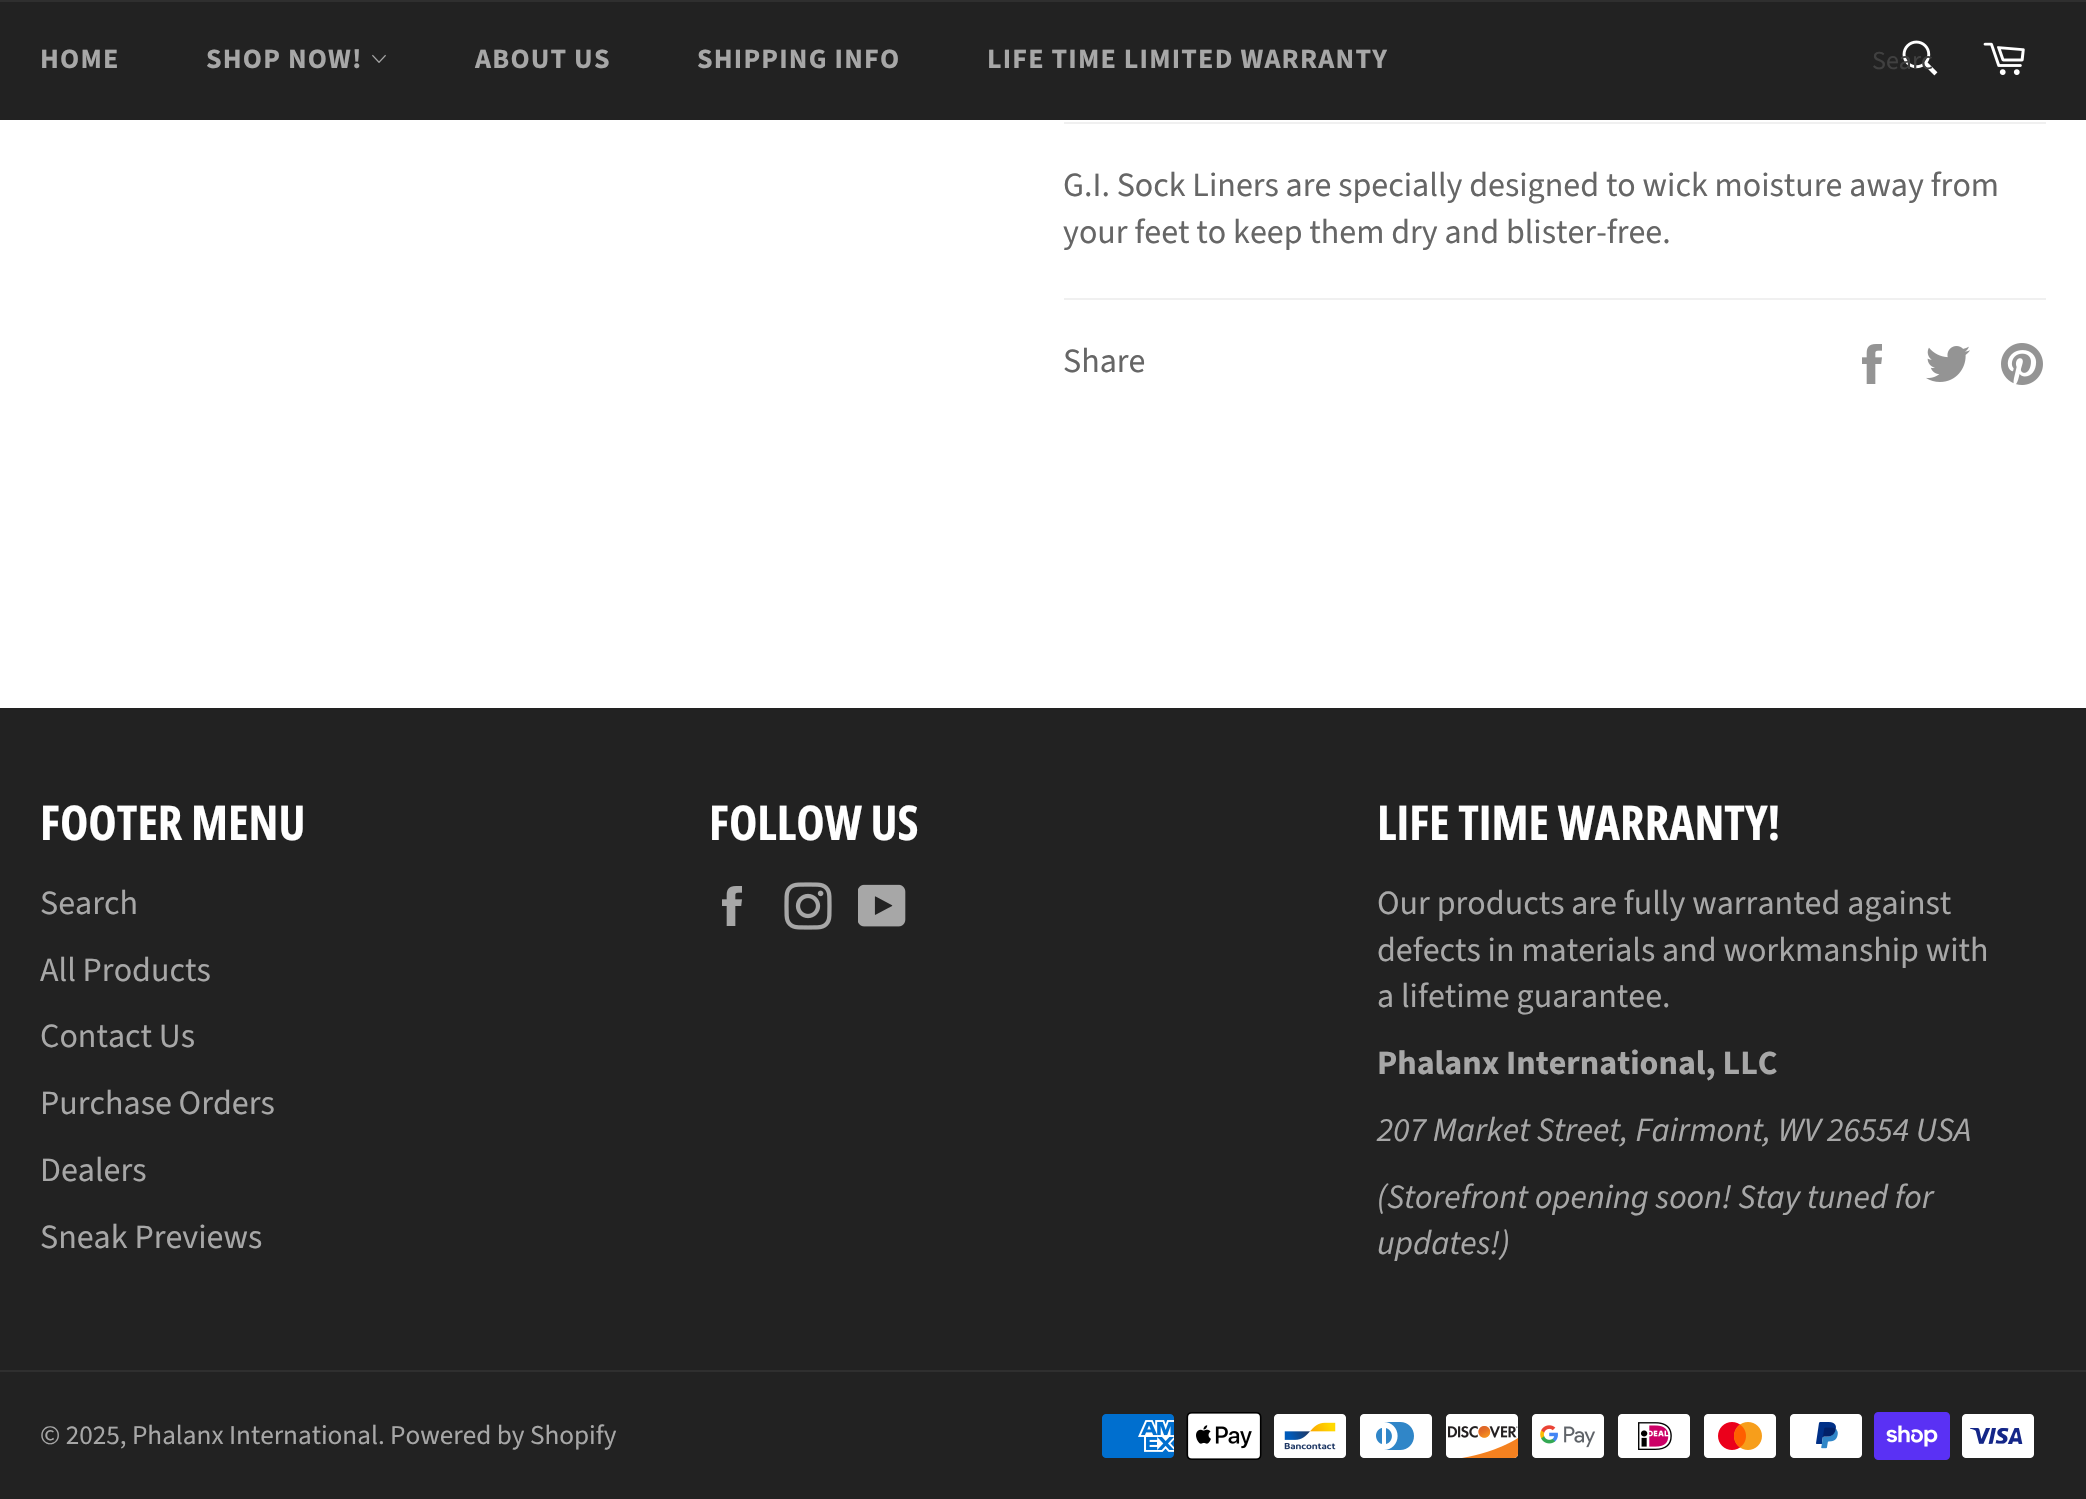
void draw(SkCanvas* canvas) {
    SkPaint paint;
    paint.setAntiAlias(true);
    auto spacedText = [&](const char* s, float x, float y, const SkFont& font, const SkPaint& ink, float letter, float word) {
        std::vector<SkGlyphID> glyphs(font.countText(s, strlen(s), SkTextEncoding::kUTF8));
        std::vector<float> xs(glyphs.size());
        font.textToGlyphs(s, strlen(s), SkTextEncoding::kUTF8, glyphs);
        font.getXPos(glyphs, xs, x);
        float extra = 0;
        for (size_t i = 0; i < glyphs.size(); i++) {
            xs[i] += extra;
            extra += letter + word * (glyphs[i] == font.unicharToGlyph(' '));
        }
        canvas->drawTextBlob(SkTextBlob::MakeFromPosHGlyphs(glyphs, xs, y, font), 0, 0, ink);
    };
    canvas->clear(0xFFFFFFFF);
    paint.setColor(0xFF222222);
    canvas->drawRect(SkRect::MakeXYWH(0, 2, 2086, 118), paint);
    paint.setColor(0xFF2F2F2F);
    canvas->drawRect(SkRect::MakeXYWH(0, 0, 2086, 2), paint);
    SkFont font1(fontMgr->matchFamilyStyle("Source Sans Pro", SkFontStyle::Bold()), 28);
    font1.setSubpixel(true);
    paint.setColor(0xFFA7A7A7);
    spacedText("HOME", 40, 68, font1, paint, 1.2f, 0);
    spacedText("SHOP NOW!", 206, 68, font1, paint, 1.2f, 0);
    canvas->drawImageRect(SkImages::DeferredFromEncodedData(SkData::MakeFromFileName("img1.png")), SkRect::MakeXYWH(372, 54, 14, 9), SkSamplingOptions());
    spacedText("ABOUT US", 475, 68, font1, paint, 1.2f, 0);
    spacedText("SHIPPING INFO", 697, 68, font1, paint, 1.2f, 0);
    spacedText("LIFE TIME LIMITED WARRANTY", 987, 68, font1, paint, 1.2f, 0);
    canvas->drawImageRect(SkImages::DeferredFromEncodedData(SkData::MakeFromFileName("img2.png")), SkRect::MakeXYWH(1902, 40, 36, 36), SkSamplingOptions());
    SkFont font2(fontMgr->matchFamilyStyle("Source Sans Pro", SkFontStyle::Normal()), 26);
    font2.setSubpixel(true);
    paint.setColor(0xFF404040);
    canvas->drawString("Searc", 1872, 69, font2, paint);
    canvas->drawImageRect(SkImages::DeferredFromEncodedData(SkData::MakeFromFileName("img3.png")), SkRect::MakeXYWH(1983, 42, 42, 33), SkSamplingOptions());
    paint.setColor(0xFFF0F0F0);
    canvas->drawRect(SkRect::MakeXYWH(1064, 122, 982, 2), paint);
    SkFont font3(fontMgr->matchFamilyStyle("Source Sans Pro", SkFontStyle::Normal()), 34);
    font3.setSubpixel(true);
    paint.setColor(0xFF666666);
    canvas->drawString("G.I. Sock Liners are specially designed to wick moisture away from", 1063, 196, font3, paint);
    canvas->drawString("your feet to keep them dry and blister-free.", 1063, 243, font3, paint);
    paint.setColor(0xFFF0F0F0);
    canvas->drawRect(SkRect::MakeXYWH(1064, 298, 982, 2), paint);
    paint.setColor(0xFF666666);
    canvas->drawString("Share", 1063, 372, font3, paint);
    canvas->drawImageRect(SkImages::DeferredFromEncodedData(SkData::MakeFromFileName("img4.png")), SkRect::MakeXYWH(1862, 344, 20, 40), SkSamplingOptions());
    canvas->drawImageRect(SkImages::DeferredFromEncodedData(SkData::MakeFromFileName("img5.png")), SkRect::MakeXYWH(1926, 346, 44, 36), SkSamplingOptions());
    canvas->drawImageRect(SkImages::DeferredFromEncodedData(SkData::MakeFromFileName("img6.png")), SkRect::MakeXYWH(2001, 343, 42, 42), SkSamplingOptions());
    paint.setColor(0xFF222222);
    canvas->drawRect(SkRect::MakeXYWH(0, 708, 2086, 791), paint);
    SkFont font4(fontMgr->matchFamilyStyle("Open Sans Condensed", SkFontStyle::Bold()), 48);
    font4.setSubpixel(true);
    paint.setColor(0xFFFFFFFF);
    canvas->drawString("FOOTER MENU", 40, 840, font4, paint);
    paint.setColor(0xFFA7A7A7);
    canvas->drawString("Search", 40, 914, font3, paint);
    canvas->drawString("All Products", 40, 981, font3, paint);
    canvas->drawString("Contact Us", 40, 1047, font3, paint);
    canvas->drawString("Purchase Orders", 40, 1114, font3, paint);
    canvas->drawString("Dealers", 40, 1181, font3, paint);
    canvas->drawString("Sneak Previews", 40, 1248, font3, paint);
    paint.setColor(0xFFFFFFFF);
    canvas->drawString("FOLLOW US", 709, 840, font4, paint);
    canvas->drawImageRect(SkImages::DeferredFromEncodedData(SkData::MakeFromFileName("img7.png")), SkRect::MakeXYWH(722, 886, 20, 40), SkSamplingOptions());
    canvas->drawImageRect(SkImages::DeferredFromEncodedData(SkData::MakeFromFileName("img8.png")), SkRect::MakeXYWH(784, 882, 48, 48), SkSamplingOptions());
    canvas->drawImageRect(SkImages::DeferredFromEncodedData(SkData::MakeFromFileName("img9.png")), SkRect::MakeXYWH(858, 884, 48, 43), SkSamplingOptions());
    canvas->drawString("LIFE TIME WARRANTY!", 1377, 840, font4, paint);
    paint.setColor(0xFFA7A7A7);
    canvas->drawString("Our products are fully warranted against", 1377, 914, font3, paint);
    canvas->drawString("defects in materials and workmanship with", 1377, 961, font3, paint);
    canvas->drawString("a lifetime guarantee.", 1377, 1007, font3, paint);
    SkFont font5(fontMgr->matchFamilyStyle("Source Sans Pro", SkFontStyle::Bold()), 34);
    font5.setSubpixel(true);
    canvas->drawString("Phalanx International, LLC", 1377, 1074, font5, paint);
    SkFont font6(fontMgr->matchFamilyStyle("Source Sans Pro", SkFontStyle::Italic()), 34);
    font6.setSubpixel(true);
    canvas->drawString("207 Market Street, Fairmont, WV 26554 USA", 1377, 1141, font6, paint);
    canvas->drawString("(Storefront opening soon! Stay tuned for", 1377, 1208, font6, paint);
    canvas->drawString("updates!)", 1377, 1254, font6, paint);
    paint.setColor(0xFF2F2F2F);
    canvas->drawRect(SkRect::MakeXYWH(0, 1370, 2086, 2), paint);
    SkFont font7(fontMgr->matchFamilyStyle("Source Sans Pro", SkFontStyle::Normal()), 27.2f);
    font7.setSubpixel(true);
    paint.setColor(0xFFA7A7A7);
    canvas->drawString("© 2025, Phalanx International. Powered by Shopify", 40, 1444, font7, paint);
    canvas->drawImageRect(SkImages::DeferredFromEncodedData(SkData::MakeFromFileName("img10.png")), SkRect::MakeXYWH(1102, 1414, 72, 44), SkSamplingOptions());
    canvas->drawImageRect(SkImages::DeferredFromEncodedData(SkData::MakeFromFileName("img11.png")), SkRect::MakeXYWH(1186, 1412, 76, 48), SkSamplingOptions());
    canvas->drawImageRect(SkImages::DeferredFromEncodedData(SkData::MakeFromFileName("img12.png")), SkRect::MakeXYWH(1274, 1414, 72, 44), SkSamplingOptions());
    canvas->drawImageRect(SkImages::DeferredFromEncodedData(SkData::MakeFromFileName("img13.png")), SkRect::MakeXYWH(1360, 1414, 72, 44), SkSamplingOptions());
    canvas->drawImageRect(SkImages::DeferredFromEncodedData(SkData::MakeFromFileName("img14.png")), SkRect::MakeXYWH(1446, 1414, 73, 44), SkSamplingOptions());
    canvas->drawImageRect(SkImages::DeferredFromEncodedData(SkData::MakeFromFileName("img15.png")), SkRect::MakeXYWH(1532, 1414, 72, 44), SkSamplingOptions());
    canvas->drawImageRect(SkImages::DeferredFromEncodedData(SkData::MakeFromFileName("img16.png")), SkRect::MakeXYWH(1618, 1414, 72, 44), SkSamplingOptions());
    canvas->drawImageRect(SkImages::DeferredFromEncodedData(SkData::MakeFromFileName("img17.png")), SkRect::MakeXYWH(1704, 1414, 72, 44), SkSamplingOptions());
    canvas->drawImageRect(SkImages::DeferredFromEncodedData(SkData::MakeFromFileName("img18.png")), SkRect::MakeXYWH(1790, 1414, 72, 44), SkSamplingOptions());
    canvas->drawImageRect(SkImages::DeferredFromEncodedData(SkData::MakeFromFileName("img19.png")), SkRect::MakeXYWH(1874, 1412, 76, 48), SkSamplingOptions());
    canvas->drawImageRect(SkImages::DeferredFromEncodedData(SkData::MakeFromFileName("img20.png")), SkRect::MakeXYWH(1962, 1414, 72, 44), SkSamplingOptions());
}
